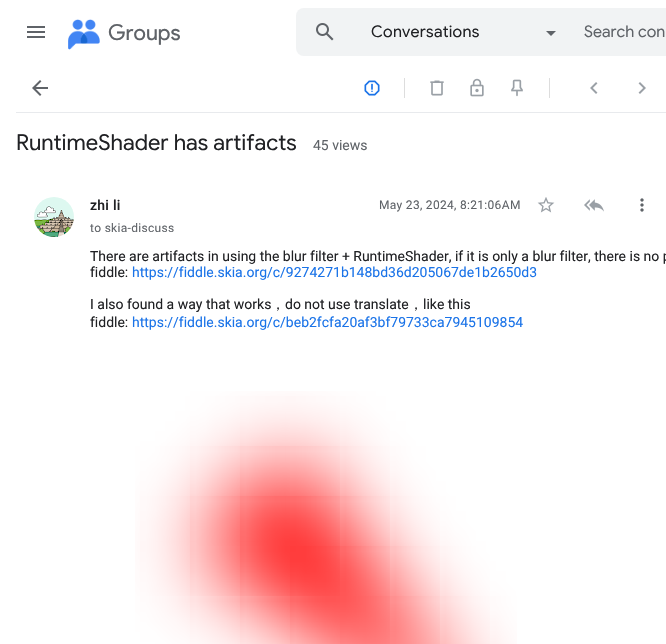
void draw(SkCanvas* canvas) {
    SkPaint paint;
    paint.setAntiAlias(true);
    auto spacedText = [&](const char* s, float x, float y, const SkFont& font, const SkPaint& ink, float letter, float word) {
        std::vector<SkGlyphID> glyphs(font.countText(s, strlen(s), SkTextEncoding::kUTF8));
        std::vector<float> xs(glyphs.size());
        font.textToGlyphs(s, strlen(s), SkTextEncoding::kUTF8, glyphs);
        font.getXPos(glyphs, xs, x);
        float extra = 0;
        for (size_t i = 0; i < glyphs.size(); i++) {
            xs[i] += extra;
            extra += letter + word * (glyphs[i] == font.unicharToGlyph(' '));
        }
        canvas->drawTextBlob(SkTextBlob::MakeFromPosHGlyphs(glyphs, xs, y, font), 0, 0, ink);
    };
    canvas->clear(0xFFFFFFFF);
    canvas->drawImageRect(SkImages::DeferredFromEncodedData(SkData::MakeFromFileName("img1.png")), SkRect::MakeXYWH(27, 26, 18, 12), SkSamplingOptions());
    canvas->drawImageRect(SkImages::DeferredFromEncodedData(SkData::MakeFromFileName("img2.png")), SkRect::MakeXYWH(68, 19, 32, 31), SkSamplingOptions());
    SkFont font1(fontMgr->matchFamilyStyle("Product Sans", SkFontStyle::Normal()), 22);
    font1.setSubpixel(true);
    paint.setColor(0xFF5F6368);
    canvas->drawString("Groups", 108, 40, font1, paint);
    paint.setColor(0xFFF1F3F4);
    canvas->drawRoundRect(SkRect::MakeXYWH(296, 8, 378, 48), 8, 8, paint);
    canvas->drawImageRect(SkImages::DeferredFromEncodedData(SkData::MakeFromFileName("img3.png")), SkRect::MakeXYWH(316, 23, 18, 18), SkSamplingOptions());
    SkFont font2(fontMgr->matchFamilyStyle("Google Sans", SkFontStyle::Normal()), 16);
    font2.setSubpixel(true);
    paint.setColor(0xFF202124);
    spacedText("Conversations", 371, 37, font2, paint, 0.25f, 0);
    paint.setColor(0xFF5F6368);
    canvas->drawPath(SkPathBuilder().moveTo(546, 31).lineTo(556, 31).lineTo(551, 36).close().detach(), paint);
    canvas->drawString("Search con", 584, 37, font2, paint);
    paint.setColor(0xFFE8EAED);
    canvas->drawRect(SkRect::MakeXYWH(16, 112, 650, 1), paint);
    canvas->drawImageRect(SkImages::DeferredFromEncodedData(SkData::MakeFromFileName("img4.png")), SkRect::MakeXYWH(32, 80, 16, 16), SkSamplingOptions());
    canvas->drawImageRect(SkImages::DeferredFromEncodedData(SkData::MakeFromFileName("img5.png")), SkRect::MakeXYWH(364, 80, 16, 16), SkSamplingOptions());
    paint.setColor(0xFFDDDDDD);
    canvas->drawRect(SkRect::MakeXYWH(404, 78, 1, 20), paint);
    canvas->drawImageRect(SkImages::DeferredFromEncodedData(SkData::MakeFromFileName("img6.png")), SkRect::MakeXYWH(430, 80, 14, 16), SkSamplingOptions());
    canvas->drawImageRect(SkImages::DeferredFromEncodedData(SkData::MakeFromFileName("img7.png")), SkRect::MakeXYWH(470, 78, 14, 19), SkSamplingOptions());
    canvas->drawImageRect(SkImages::DeferredFromEncodedData(SkData::MakeFromFileName("img8.png")), SkRect::MakeXYWH(511, 79, 12, 18), SkSamplingOptions());
    canvas->drawRect(SkRect::MakeXYWH(549, 78, 1, 20), paint);
    canvas->drawImageRect(SkImages::DeferredFromEncodedData(SkData::MakeFromFileName("img9.png")), SkRect::MakeXYWH(590, 82, 8, 12), SkSamplingOptions());
    canvas->drawImageRect(SkImages::DeferredFromEncodedData(SkData::MakeFromFileName("img10.png")), SkRect::MakeXYWH(638, 82, 8, 12), SkSamplingOptions());
    SkFont font3(fontMgr->matchFamilyStyle("Google Sans", SkFontStyle::Normal()), 22);
    font3.setSubpixel(true);
    paint.setColor(0xFF202124);
    canvas->drawString("RuntimeShader has artifacts", 16, 150, font3, paint);
    SkFont font4(fontMgr->matchFamilyStyle("Roboto", SkFontStyle::Normal()), 14);
    font4.setSubpixel(true);
    paint.setColor(0xFF5F6368);
    canvas->drawString("45 views", 313, 150, font4, paint);
    canvas->drawImageRect(SkImages::DeferredFromEncodedData(SkData::MakeFromFileName("img11.png")), SkRect::MakeXYWH(34, 197, 40, 40), SkSamplingOptions());
    SkFont font5(fontMgr->matchFamilyStyle("Roboto", SkFontStyle(500, SkFontStyle::kNormal_Width, SkFontStyle::kUpright_Slant)), 14);
    font5.setSubpixel(true);
    paint.setColor(0xFF202124);
    spacedText("zhi li", 90, 210, font5, paint, 0.25f, 0);
    SkFont font6(fontMgr->matchFamilyStyle("Roboto", SkFontStyle::Normal()), 12);
    font6.setSubpixel(true);
    paint.setColor(0xFF5F6368);
    spacedText("May 23, 2024, 8:21:06 AM", 379, 209, font6, paint, 0.3f, 0);
    canvas->drawImageRect(SkImages::DeferredFromEncodedData(SkData::MakeFromFileName("img12.png")), SkRect::MakeXYWH(537, 197, 18, 16), SkSamplingOptions());
    canvas->drawImageRect(SkImages::DeferredFromEncodedData(SkData::MakeFromFileName("img13.png")), SkRect::MakeXYWH(584, 199, 20, 13), SkSamplingOptions());
    canvas->drawImageRect(SkImages::DeferredFromEncodedData(SkData::MakeFromFileName("img14.png")), SkRect::MakeXYWH(640, 198, 4, 14), SkSamplingOptions());
    spacedText("to skia-discuss", 90, 232, font6, paint, 0.3f, 0);
    paint.setColor(0xFF202124);
    canvas->drawString("There are artifacts in using the blur filter + RuntimeShader, if it is only a blur filter, there is no p", 90, 261, font4, paint);
    canvas->drawString("fiddle:", 90, 277, font4, paint);
    paint.setColor(0xFF1A73E8);
    canvas->drawString("https://fiddle.skia.org/c/9274271b148bd36d205067de1b2650d3", 132, 277, font4, paint);
    paint.setColor(0xFF202124);
    canvas->drawString("I also found a way that works", 90, 309, font4, paint);
    SkFont font7(fontMgr->matchFamilyStyle("WenQuanYi Zen Hei", SkFontStyle(500, SkFontStyle::kNormal_Width, SkFontStyle::kUpright_Slant)), 14);
    font7.setSubpixel(true);
    canvas->drawString("，", 271, 309, font7, paint);
    canvas->drawString("do not use translate", 285, 309, font4, paint);
    canvas->drawString("，", 409, 309, font7, paint);
    canvas->drawString("like this", 423, 309, font4, paint);
    canvas->drawString("fiddle:", 90, 327, font4, paint);
    paint.setColor(0xFF1A73E8);
    canvas->drawString("https://fiddle.skia.org/c/beb2fcfa20af3bf79733ca7945109854", 132, 327, font4, paint);
    canvas->drawImageRect(SkImages::DeferredFromEncodedData(SkData::MakeFromFileName("img15.png")), SkRect::MakeXYWH(135, 391, 382, 253), SkSamplingOptions());
}
